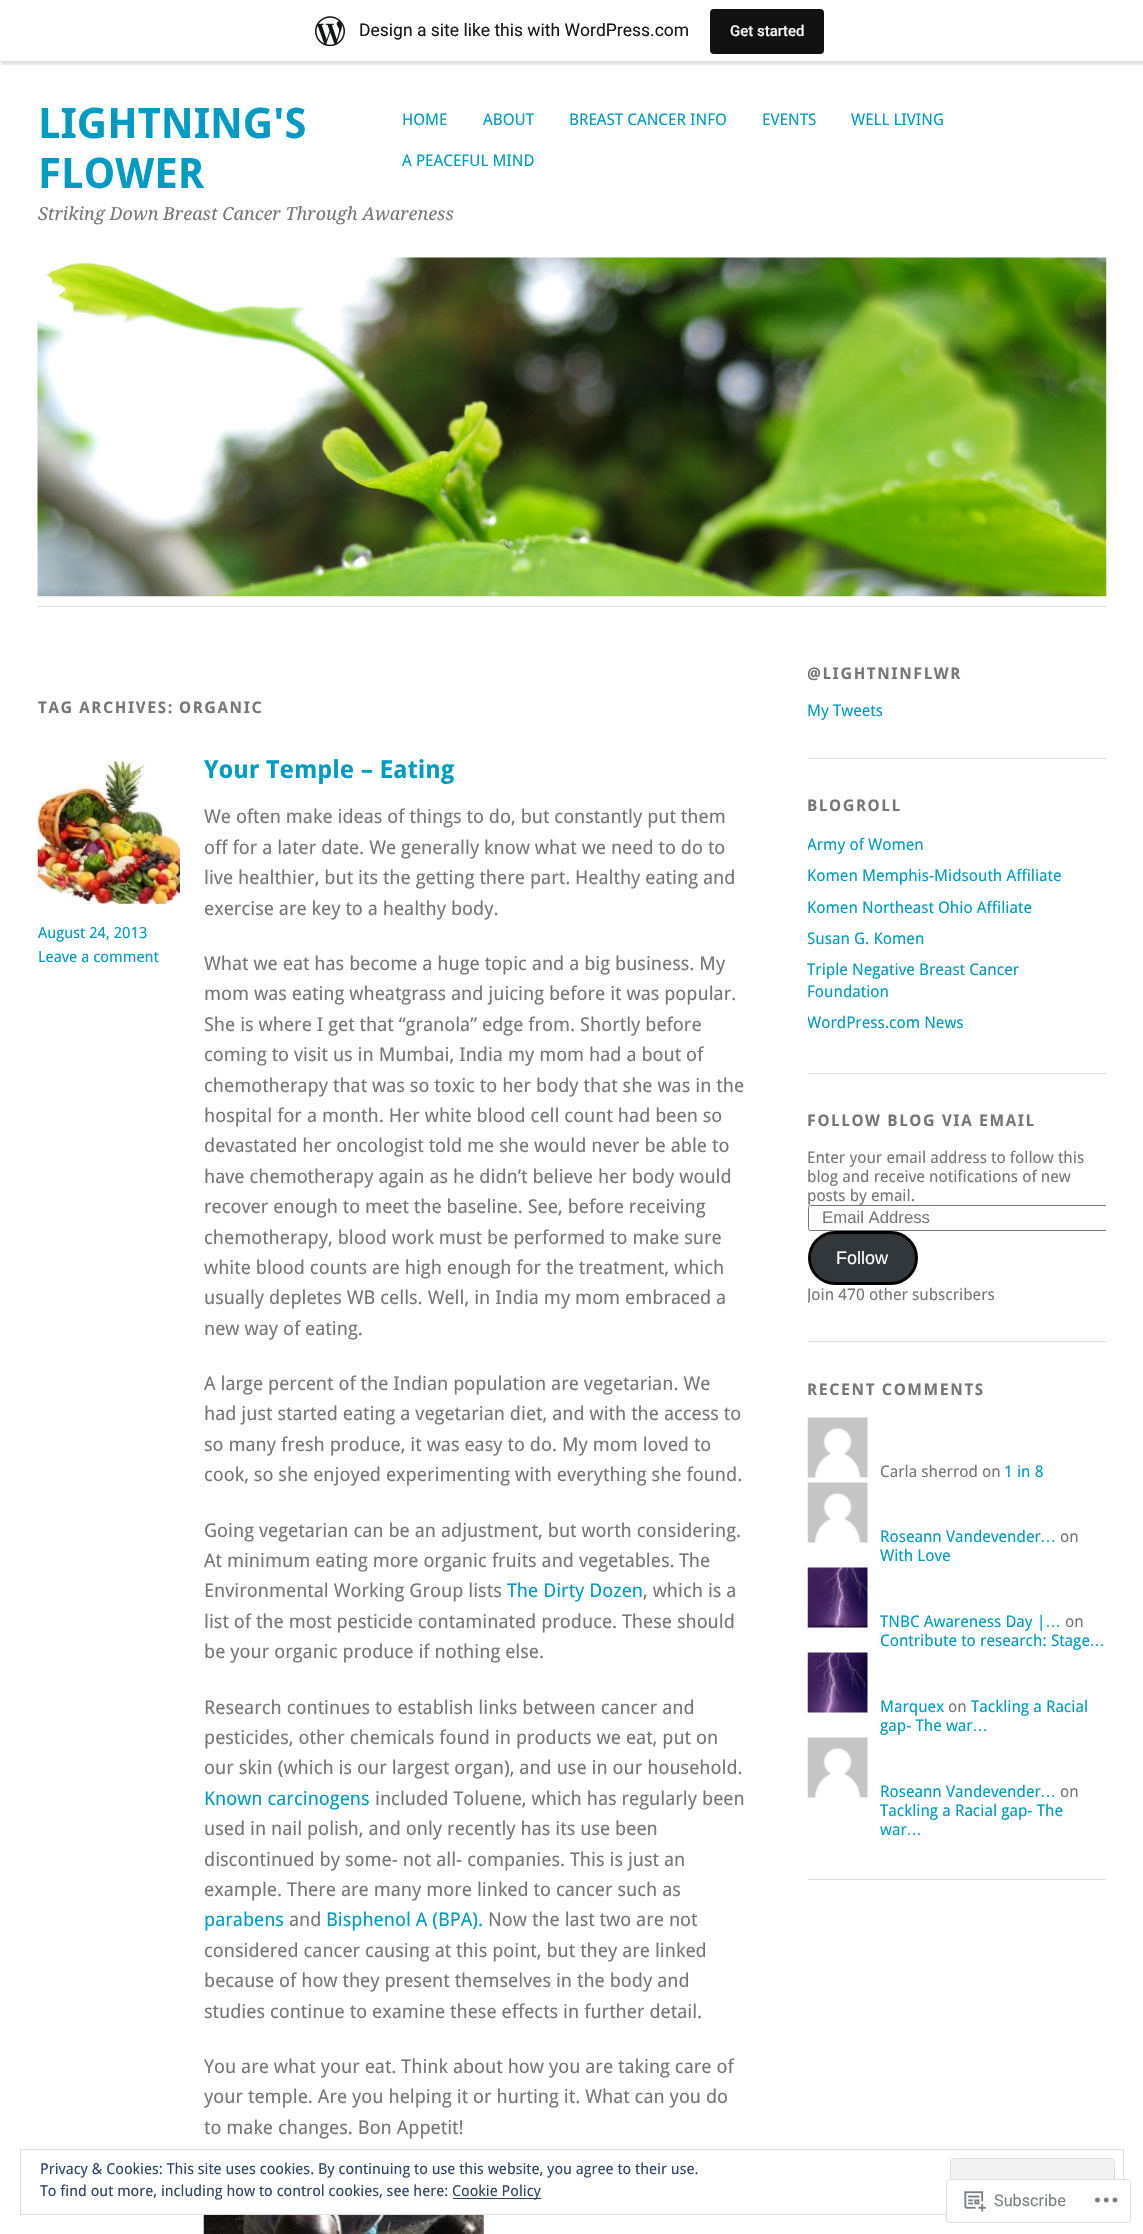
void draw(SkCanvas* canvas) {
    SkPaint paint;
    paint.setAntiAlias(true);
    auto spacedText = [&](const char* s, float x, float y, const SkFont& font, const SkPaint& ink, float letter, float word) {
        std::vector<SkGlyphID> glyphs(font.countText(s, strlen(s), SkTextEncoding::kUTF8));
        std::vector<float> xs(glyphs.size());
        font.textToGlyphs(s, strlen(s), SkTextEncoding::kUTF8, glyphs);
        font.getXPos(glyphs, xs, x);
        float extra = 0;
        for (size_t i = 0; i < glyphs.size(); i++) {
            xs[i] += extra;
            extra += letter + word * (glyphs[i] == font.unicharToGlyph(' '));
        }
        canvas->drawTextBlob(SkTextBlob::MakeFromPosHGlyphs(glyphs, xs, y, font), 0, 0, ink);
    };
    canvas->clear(0xFFFFFFFF);
    paint.setColor(0x0D000000);
    paint.setMaskFilter(SkMaskFilter::MakeBlur(kNormal_SkBlurStyle, 1));
    canvas->drawRect(SkRect::MakeXYWH(0, 1, 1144, 62), paint);
    paint.setMaskFilter(nullptr);
    paint.setColor(0x14000000);
    canvas->drawPath(SkPathBuilder().moveTo(1, 61).lineTo(1, 65).lineTo(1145, 65).lineTo(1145, 4).lineTo(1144, 4).lineTo(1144, 61).close().detach(), paint);
    paint.setColor(0xFFFFFFFF);
    canvas->drawRect(SkRect::MakeXYWH(0, 0, 1143, 61), paint);
    canvas->drawImageRect(SkImages::DeferredFromEncodedData(SkData::MakeFromFileName("img1.png")), SkRect::MakeXYWH(315, 16, 30, 30), SkSamplingOptions());
    SkFont font1(fontMgr->matchFamilyStyle("Roboto", SkFontStyle::Normal()), 17.5f);
    font1.setSubpixel(true);
    paint.setColor(0xFF171717);
    canvas->drawString("Design a site like this with WordPress.com", 359, 36, font1, paint);
    paint.setColor(0xFF111111);
    canvas->drawRoundRect(SkRect::MakeXYWH(710, 9, 114, 45), 4, 4, paint);
    SkFont font2(fontMgr->matchFamilyStyle("Roboto", SkFontStyle(500, SkFontStyle::kNormal_Width, SkFontStyle::kUpright_Slant)), 15);
    font2.setSubpixel(true);
    paint.setColor(0xFFF6F7F7);
    canvas->drawString("Get started", 730, 36, font2, paint);
    SkFont font3(fontMgr->matchFamilyStyle("Droid Sans", SkFontStyle::Bold()), 42);
    font3.setSubpixel(true);
    paint.setColor(0xFF009BC2);
    canvas->drawString("LIGHTNING'S", 38, 138, font3, paint);
    canvas->drawString("FLOWER", 38, 188, font3, paint);
    SkFont font4(fontMgr->matchFamilyStyle("Droid Serif", SkFontStyle::Italic()), 18);
    font4.setSubpixel(true);
    paint.setColor(0xFF777777);
    canvas->drawString("Striking Down Breast Cancer Through Awareness", 38, 220, font4, paint);
    SkFont font5(fontMgr->matchFamilyStyle("Droid Sans", SkFontStyle::Normal()), 16);
    font5.setSubpixel(true);
    paint.setColor(0xFF009BC2);
    canvas->drawString("HOME", 402, 125, font5, paint);
    canvas->drawString("ABOUT", 483, 125, font5, paint);
    canvas->drawString("BREAST CANCER INFO", 569, 125, font5, paint);
    canvas->drawString("EVENTS", 762, 125, font5, paint);
    canvas->drawString("WELL LIVING", 851, 125, font5, paint);
    canvas->drawString("A PEACEFUL MIND", 402, 166, font5, paint);
    canvas->drawImageRect(SkImages::DeferredFromEncodedData(SkData::MakeFromFileName("img2.png")), SkRect::MakeXYWH(37, 257, 1070, 340), SkSamplingOptions());
    paint.setColor(0xFFDDDDDD);
    canvas->drawRect(SkRect::MakeXYWH(38, 606, 1068, 1), paint);
    canvas->save();
    canvas->clipRect(SkRect::MakeXYWH(38, 664, 770, 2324));
    SkFont font6(fontMgr->matchFamilyStyle("Droid Sans", SkFontStyle::Bold()), 16);
    font6.setSubpixel(true);
    paint.setColor(0xFF777777);
    spacedText("TAG ARCHIVES:", 38, 713, font6, paint, 1.6f, 0);
    canvas->restore();
    spacedText("ORGANIC", 179, 713, font6, paint, 1.6f, 0);
    SkFont font7(fontMgr->matchFamilyStyle("Droid Sans", SkFontStyle::Bold()), 24.75f);
    font7.setSubpixel(true);
    paint.setColor(0xFF009BC2);
    canvas->drawString("Your Temple – Eating", 204, 778, font7, paint);
    canvas->drawImageRect(SkImages::DeferredFromEncodedData(SkData::MakeFromFileName("img3.png")), SkRect::MakeXYWH(37, 761, 143, 143), SkSamplingOptions());
    SkFont font8(fontMgr->matchFamilyStyle("Droid Sans", SkFontStyle::Normal()), 15.25f);
    font8.setSubpixel(true);
    canvas->drawString("August 24, 2013", 38, 938, font8, paint);
    canvas->drawString("Leave a comment", 38, 962, font8, paint);
    SkFont font9(fontMgr->matchFamilyStyle("Droid Sans", SkFontStyle::Normal()), 19);
    font9.setSubpixel(true);
    paint.setColor(0xFF777777);
    canvas->drawString("We often make ideas of things to do, but constantly put them", 204, 823, font9, paint);
    canvas->drawString("off for a later date. We generally know what we need to do to", 204, 854, font9, paint);
    canvas->drawString("live healthier, but its the getting there part.", 204, 884, font9, paint);
    canvas->drawString("Healthy eating and", 575, 884, font9, paint);
    canvas->drawString("exercise are key to a healthy body.", 204, 915, font9, paint);
    canvas->drawString("What we eat has become a huge topic and a big business. My", 204, 970, font9, paint);
    canvas->drawString("mom was eating wheatgrass and juicing before it was popular.", 204, 1000, font9, paint);
    canvas->drawString("She is where I get that “granola” edge from. Shortly before", 204, 1031, font9, paint);
    canvas->drawString("coming to visit us in Mumbai, India my mom had a bout of", 204, 1061, font9, paint);
    canvas->drawString("chemotherapy that was so toxic to her body that she was in the", 204, 1092, font9, paint);
    canvas->drawString("hospital for a month. Her white blood cell count had been so", 204, 1122, font9, paint);
    canvas->drawString("devastated her oncologist told me she would never be able to", 204, 1152, font9, paint);
    canvas->drawString("have chemotherapy again as he didn’t believe her body would", 204, 1183, font9, paint);
    canvas->drawString("recover enough to meet the baseline. See, before receiving", 204, 1213, font9, paint);
    canvas->drawString("chemotherapy, blood work must be performed to make sure", 204, 1244, font9, paint);
    canvas->drawString("white blood counts are high enough for the treatment, which", 204, 1274, font9, paint);
    canvas->drawString("usually depletes WB cells. Well, in India my mom embraced a", 204, 1304, font9, paint);
    canvas->drawString("new way of eating.", 204, 1335, font9, paint);
    canvas->drawString("A large percent of the Indian population are vegetarian. We", 204, 1390, font9, paint);
    canvas->drawString("had just started eating a vegetarian diet, and with the access to", 204, 1420, font9, paint);
    canvas->drawString("so many fresh produce, it was easy to do.", 204, 1451, font9, paint);
    canvas->drawString("My mom loved to", 562, 1451, font9, paint);
    canvas->drawString("cook, so she enjoyed experimenting with everything she found.", 204, 1481, font9, paint);
    canvas->drawString("Going vegetarian can be an adjustment, but worth considering.", 204, 1537, font9, paint);
    canvas->drawString("At minimum eating more organic fruits and vegetables.", 204, 1567, font9, paint);
    canvas->drawString("The", 679, 1567, font9, paint);
    canvas->drawString("Environmental Working Group lists", 204, 1597, font9, paint);
    paint.setColor(0xFF009BC2);
    canvas->drawString("The Dirty Dozen", 507, 1597, font9, paint);
    paint.setColor(0xFF777777);
    canvas->drawString(", which is a", 643, 1597, font9, paint);
    canvas->drawString("list of the most pesticide contaminated produce.", 204, 1628, font9, paint);
    canvas->drawString("These should", 622, 1628, font9, paint);
    canvas->drawString("be your organic produce if nothing else.", 204, 1658, font9, paint);
    canvas->drawString("Research continues to establish links between cancer and", 204, 1714, font9, paint);
    canvas->drawString("pesticides, other chemicals found in products we eat, put on", 204, 1744, font9, paint);
    canvas->drawString("our skin (which is our largest organ), and use in our household.", 204, 1774, font9, paint);
    paint.setColor(0xFF009BC2);
    canvas->drawString("Known carcinogens", 204, 1805, font9, paint);
    paint.setColor(0xFF777777);
    canvas->drawString("included Toluene, which has regularly been", 375, 1805, font9, paint);
    canvas->drawString("used in nail polish, and only recently has its use been", 204, 1835, font9, paint);
    canvas->drawString("discontinued by some- not all- companies.", 204, 1866, font9, paint);
    canvas->drawString("This is just an", 570, 1866, font9, paint);
    canvas->drawString("example. There are many more linked to cancer such as", 204, 1896, font9, paint);
    paint.setColor(0xFF009BC2);
    canvas->drawString("parabens", 204, 1926, font9, paint);
    paint.setColor(0xFF777777);
    canvas->drawString("and", 289, 1926, font9, paint);
    paint.setColor(0xFF009BC2);
    canvas->drawString("Bisphenol A (BPA).", 326, 1926, font9, paint);
    paint.setColor(0xFF777777);
    canvas->drawString("Now the last two are not", 488, 1926, font9, paint);
    canvas->drawString("considered cancer causing at this point, but they are linked", 204, 1957, font9, paint);
    canvas->drawString("because of how they present themselves in the body and", 204, 1987, font9, paint);
    canvas->drawString("studies continue to examine these effects in further detail.", 204, 2018, font9, paint);
    canvas->drawString("You are what your eat. Think about how you are taking care of", 204, 2073, font9, paint);
    canvas->drawString("your temple. Are you helping it or hurting it. What can you do", 204, 2103, font9, paint);
    canvas->drawString("to make changes. Bon Appetit!", 204, 2134, font9, paint);
    canvas->drawImageRect(SkImages::DeferredFromEncodedData(SkData::MakeFromFileName("img4.png")), SkRect::MakeXYWH(203, 2215, 281, 19), SkSamplingOptions());
    paint.setColor(0xFFDDDDDD);
    canvas->drawRect(SkRect::MakeXYWH(808, 758, 298, 1), paint);
    canvas->save();
    canvas->clipRect(SkRect::MakeXYWH(808, 664, 298, 94));
    paint.setColor(0xFF777777);
    spacedText("@LIGHTNINFLWR", 807, 679, font6, paint, 1.6f, 0);
    canvas->restore();
    paint.setColor(0xFF009BC2);
    canvas->drawString("My Tweets", 807, 716, font5, paint);
    paint.setColor(0xFFDDDDDD);
    canvas->drawRect(SkRect::MakeXYWH(808, 1073, 298, 1), paint);
    paint.setColor(0xFF777777);
    spacedText("BLOGROLL", 807, 811, font6, paint, 1.6f, 0);
    canvas->save();
    canvas->clipRect(SkRect::MakeXYWH(808, 796, 298, 277));
    paint.setColor(0xFF009BC2);
    canvas->drawString("Army of Women", 807, 850, font5, paint);
    canvas->restore();
    canvas->drawString("Komen Memphis-Midsouth Affiliate", 807, 881, font5, paint);
    canvas->drawString("Komen Northeast Ohio Affiliate", 807, 913, font5, paint);
    canvas->drawString("Susan G. Komen", 807, 944, font5, paint);
    canvas->drawString("Triple Negative Breast Cancer", 807, 975, font5, paint);
    canvas->drawString("Foundation", 807, 997, font5, paint);
    canvas->save();
    canvas->clipRect(SkRect::MakeXYWH(808, 796, 298, 277));
    canvas->drawString("WordPress.com News", 807, 1028, font5, paint);
    canvas->restore();
    paint.setColor(0xFFDDDDDD);
    canvas->drawRect(SkRect::MakeXYWH(808, 1341, 298, 1), paint);
    paint.setColor(0xFF777777);
    spacedText("FOLLOW BLOG VIA EMAIL", 807, 1126, font6, paint, 1.6f, 0);
    canvas->drawString("Enter your email address to follow this", 807, 1163, font5, paint);
    canvas->drawString("blog and receive notifications of new", 807, 1182, font5, paint);
    canvas->drawString("posts by email.", 807, 1201, font5, paint);
    canvas->save();
    canvas->clipRect(SkRect::MakeXYWH(808, 1111, 298, 230));
    paint.setStyle(SkPaint::kStroke_Style);
    paint.setStrokeWidth(1);
    paint.setColor(0xFF767676);
    canvas->drawRoundRect(SkRect::MakeXYWH(808.5f, 1205.5f, 312, 25), 2, 2, paint);
    canvas->restore();
    SkFont font10(fontMgr->matchFamilyStyle("Liberation Sans", SkFontStyle::Normal()), 16.75f);
    font10.setSubpixel(true);
    paint.setStyle(SkPaint::kFill_Style);
    paint.setColor(0xFF777777);
    canvas->drawString("Email Address", 822, 1223, font10, paint);
    paint.setColor(0xFF32373C);
    canvas->drawRoundRect(SkRect::MakeXYWH(809.5f, 1232.5f, 107, 51), 25.5f, 25.5f, paint);
    paint.setStyle(SkPaint::kStroke_Style);
    paint.setStrokeWidth(3);
    paint.setColor(0xFF000000);
    canvas->drawRoundRect(SkRect::MakeXYWH(809.5f, 1232.5f, 107, 51), 25.5f, 25.5f, paint);
    SkFont font11(fontMgr->matchFamilyStyle("Liberation Sans", SkFontStyle::Normal()), 18);
    font11.setSubpixel(true);
    paint.setStyle(SkPaint::kFill_Style);
    paint.setColor(0xFFFFFFFF);
    canvas->drawString("Follow", 836, 1264, font11, paint);
    canvas->save();
    canvas->clipRect(SkRect::MakeXYWH(808, 1111, 298, 230));
    paint.setColor(0xFF777777);
    canvas->drawString("Join 470 other subscribers", 807, 1300, font5, paint);
    canvas->restore();
    paint.setColor(0xFFDDDDDD);
    canvas->drawRect(SkRect::MakeXYWH(808, 1879, 298, 1), paint);
    paint.setColor(0xFF777777);
    spacedText("RECENT COMMENTS", 807, 1395, font6, paint, 1.6f, 0);
    canvas->drawImageRect(SkImages::DeferredFromEncodedData(SkData::MakeFromFileName("img5.png")), SkRect::MakeXYWH(807, 1417, 61, 61), SkSamplingOptions());
    canvas->drawString("Carla sherrod on", 880, 1477, font5, paint);
    paint.setColor(0xFF009BC2);
    canvas->drawString("1 in 8", 1004, 1477, font5, paint);
    canvas->drawImageRect(SkImages::DeferredFromEncodedData(SkData::MakeFromFileName("img5.png")), SkRect::MakeXYWH(807, 1482, 61, 61), SkSamplingOptions());
    canvas->drawString("Roseann Vandevender", 880, 1542, font5, paint);
    SkFont font12(fontMgr->matchFamilyStyle("Liberation Sans", SkFontStyle::Normal()), 16);
    font12.setSubpixel(true);
    canvas->drawString("…", 1040, 1542, font12, paint);
    paint.setColor(0xFF777777);
    canvas->drawString("on", 1060, 1542, font5, paint);
    paint.setColor(0xFF009BC2);
    canvas->drawString("With Love", 880, 1561, font5, paint);
    canvas->drawImageRect(SkImages::DeferredFromEncodedData(SkData::MakeFromFileName("img6.png")), SkRect::MakeXYWH(807, 1567, 61, 61), SkSamplingOptions());
    canvas->drawString("TNBC Awareness Day |", 880, 1627, font5, paint);
    canvas->drawString("…", 1045, 1627, font12, paint);
    paint.setColor(0xFF777777);
    canvas->drawString("on", 1065, 1627, font5, paint);
    paint.setColor(0xFF009BC2);
    canvas->drawString("Contribute to research: Stage", 880, 1646, font5, paint);
    canvas->drawString("…", 1089, 1646, font12, paint);
    canvas->drawImageRect(SkImages::DeferredFromEncodedData(SkData::MakeFromFileName("img7.png")), SkRect::MakeXYWH(807, 1652, 61, 61), SkSamplingOptions());
    canvas->drawString("Marquex", 880, 1712, font5, paint);
    paint.setColor(0xFF777777);
    canvas->drawString("on", 948, 1712, font5, paint);
    paint.setColor(0xFF009BC2);
    canvas->drawString("Tackling a Racial", 971, 1712, font5, paint);
    canvas->drawString("gap- The war", 880, 1731, font5, paint);
    canvas->drawString("…", 972, 1731, font12, paint);
    canvas->drawImageRect(SkImages::DeferredFromEncodedData(SkData::MakeFromFileName("img5.png")), SkRect::MakeXYWH(807, 1737, 61, 61), SkSamplingOptions());
    canvas->drawString("Roseann Vandevender", 880, 1797, font5, paint);
    canvas->drawString("…", 1040, 1797, font12, paint);
    paint.setColor(0xFF777777);
    canvas->drawString("on", 1060, 1797, font5, paint);
    paint.setColor(0xFF009BC2);
    canvas->drawString("Tackling a Racial gap- The", 880, 1816, font5, paint);
    canvas->drawString("war", 880, 1835, font5, paint);
    canvas->drawString("…", 906, 1835, font12, paint);
    paint.setStyle(SkPaint::kStroke_Style);
    paint.setStrokeWidth(1);
    paint.setColor(0xFFDEDEDE);
    canvas->drawRect(SkRect::MakeXYWH(20.5f, 2149.5f, 1103, 65), paint);
    paint.setStyle(SkPaint::kFill_Style);
    paint.setColor(0xFFF3F3F3);
    canvas->drawRoundRect(SkRect::MakeXYWH(950.5f, 2158.5f, 164, 47), 3.5f, 3.5f, paint);
    paint.setStyle(SkPaint::kStroke_Style);
    paint.setColor(0xFFDEDEDE);
    canvas->drawRoundRect(SkRect::MakeXYWH(950.5f, 2158.5f, 164, 47), 3.5f, 3.5f, paint);
    paint.setStyle(SkPaint::kFill_Style);
    paint.setColor(0xFAFFFFFF);
    canvas->drawRoundRect(SkRect::MakeXYWH(946, 2179, 185, 44), 4, 4, paint);
    paint.setStyle(SkPaint::kStroke_Style);
    paint.setColor(0xFADCDCDE);
    canvas->drawRoundRect(SkRect::MakeXYWH(946.5f, 2179.5f, 184, 43), 3.5f, 3.5f, paint);
    canvas->drawImageRect(SkImages::DeferredFromEncodedData(SkData::MakeFromFileName("img8.png")), SkRect::MakeXYWH(964, 2191, 22, 21), SkSamplingOptions());
    SkFont font13(fontMgr->matchFamilyStyle("Roboto", SkFontStyle::Normal()), 16.25f);
    font13.setSubpixel(true);
    paint.setStyle(SkPaint::kFill_Style);
    paint.setColor(0xFF7B7F84);
    canvas->drawString("Subscribe", 994, 2206, font13, paint);
    canvas->drawImageRect(SkImages::DeferredFromEncodedData(SkData::MakeFromFileName("img9.png")), SkRect::MakeXYWH(1095, 2197, 23, 6), SkSamplingOptions());
    SkFont font14(fontMgr->matchFamilyStyle("Droid Sans", SkFontStyle::Normal()), 15);
    font14.setSubpixel(true);
    paint.setColor(0xFF2E4467);
    canvas->drawString("Privacy & Cookies: This site uses cookies. By continuing to use this website, you agree to their use.", 40, 2174, font14, paint);
    canvas->drawString("To find out more, including how to control cookies, see here:", 40, 2196, font14, paint);
    canvas->drawRect(SkRect::MakeXYWH(453, 2198, 88, 1), paint);
    canvas->drawString("Cookie Policy", 452, 2196, font14, paint);
}
